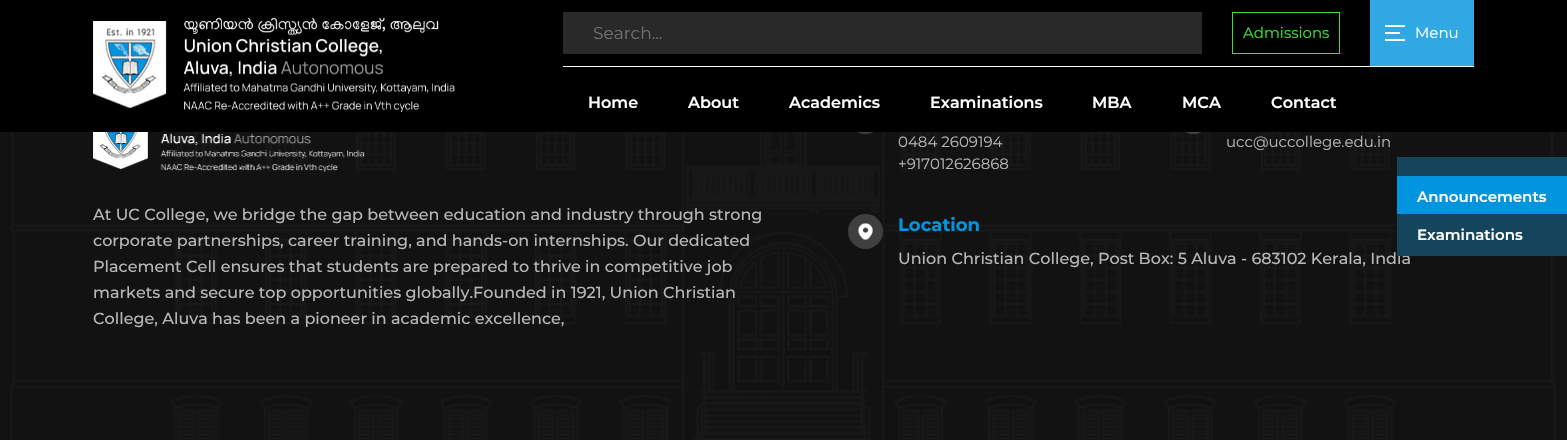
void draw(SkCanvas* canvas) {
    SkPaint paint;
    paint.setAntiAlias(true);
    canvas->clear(0xFF121212);
    canvas->drawImageRect(SkImages::DeferredFromEncodedData(SkData::MakeFromFileName("img2.png")), SkRect::MakeXYWH(10, 132, 1547, 308), SkSamplingOptions());
    paint.setColor(0x30FFFFFF);
    canvas->drawCircle(865.5f, 116.5f, 17.5f, paint);
    canvas->drawCircle(1193.5f, 116.5f, 17.5f, paint);
    paint.setColor(0xFF000000);
    canvas->drawRect(SkRect::MakeXYWH(0, 0, 1567, 132), paint);
    canvas->drawImageRect(SkImages::DeferredFromEncodedData(SkData::MakeFromFileName("img1.png")), SkRect::MakeXYWH(93, 17, 362, 95), SkSamplingOptions());
    paint.setColor(0xFFFFFFFF);
    canvas->drawRect(SkRect::MakeXYWH(563, 66, 911, 1), paint);
    paint.setColor(0xFF292929);
    canvas->drawRect(SkRect::MakeXYWH(563, 12, 639, 42), paint);
    SkFont font1(fontMgr->matchFamilyStyle("Montserrat", SkFontStyle::Normal()), 17);
    font1.setSubpixel(true);
    paint.setColor(0xFF707070);
    canvas->drawString("Search...", 593, 39, font1, paint);
    paint.setStyle(SkPaint::kStroke_Style);
    paint.setStrokeWidth(1);
    paint.setColor(0xFF3BE430);
    canvas->drawRect(SkRect::MakeXYWH(1232.5f, 12.5f, 107, 41), paint);
    SkFont font2(fontMgr->matchFamilyStyle("Montserrat", SkFontStyle::Normal()), 15);
    font2.setSubpixel(true);
    paint.setStyle(SkPaint::kFill_Style);
    canvas->drawString("Admissions", 1243, 38, font2, paint);
    paint.setColor(0xFF30A8E4);
    canvas->drawRect(SkRect::MakeXYWH(1370, 0, 104, 66), paint);
    paint.setColor(0xFFFFFFFF);
    canvas->drawRect(SkRect::MakeXYWH(1385, 25, 20, 2), paint);
    canvas->drawRect(SkRect::MakeXYWH(1385, 32, 15, 2), paint);
    canvas->drawRect(SkRect::MakeXYWH(1385, 39, 20, 2), paint);
    canvas->drawString("Menu", 1415, 38, font2, paint);
    SkFont font3(fontMgr->matchFamilyStyle("Montserrat", SkFontStyle(600, SkFontStyle::kNormal_Width, SkFontStyle::kUpright_Slant)), 16);
    font3.setSubpixel(true);
    canvas->drawString("Home", 588, 108, font3, paint);
    canvas->drawString("About", 688, 108, font3, paint);
    canvas->drawString("Academics", 789, 108, font3, paint);
    canvas->drawString("Examinations", 930, 108, font3, paint);
    canvas->drawString("MBA", 1092, 108, font3, paint);
    canvas->drawString("MCA", 1182, 108, font3, paint);
    canvas->drawString("Contact", 1271, 108, font3, paint);
    paint.setColor(0xFF14455D);
    canvas->drawRect(SkRect::MakeXYWH(1397, 157, 170, 19), paint);
    canvas->drawImageRect(SkImages::DeferredFromEncodedData(SkData::MakeFromFileName("img3.png")), SkRect::MakeXYWH(93, 132, 272, 40), SkSamplingOptions());
    SkFont font4(fontMgr->matchFamilyStyle("Montserrat", SkFontStyle(500, SkFontStyle::kNormal_Width, SkFontStyle::kUpright_Slant)), 16);
    font4.setSubpixel(true);
    paint.setColor(0xFFB6B6B6);
    canvas->drawString("At UC College, we bridge the gap between education and industry through strong", 93, 220, font4, paint);
    canvas->drawString("corporate partnerships, career training, and hands-on internships. Our dedicated", 93, 246, font4, paint);
    canvas->drawString("Placement Cell ensures that students are prepared to thrive in competitive job", 93, 272, font4, paint);
    canvas->drawString("markets and secure top opportunities globally.Founded in 1921, Union Christian", 93, 298, font4, paint);
    canvas->drawString("College, Aluva has been a pioneer in academic excellence,", 93, 324, font4, paint);
    canvas->drawString("0484 2609194", 898, 147, font2, paint);
    canvas->drawString("+917012626868", 898, 169, font2, paint);
    canvas->drawString("ucc@uccollege.edu.in", 1226, 147, font2, paint);
    paint.setColor(0x30FFFFFF);
    canvas->drawCircle(865.5f, 231.5f, 17.5f, paint);
    canvas->drawImageRect(SkImages::DeferredFromEncodedData(SkData::MakeFromFileName("img4.png")), SkRect::MakeXYWH(858, 222, 15, 19), SkSamplingOptions());
    SkFont font5(fontMgr->matchFamilyStyle("Montserrat", SkFontStyle::Bold()), 18);
    font5.setSubpixel(true);
    paint.setColor(0xFF0195DF);
    canvas->drawString("Location", 898, 231, font5, paint);
    paint.setColor(0xFFB6B6B6);
    canvas->drawString("Union Christian College, Post Box: 5 Aluva - 683102 Kerala, India", 898, 264, font4, paint);
    paint.setColor(0xFF0195DF);
    canvas->drawRect(SkRect::MakeXYWH(1397, 176, 170, 38), paint);
    SkFont font6(fontMgr->matchFamilyStyle("Montserrat", SkFontStyle(600, SkFontStyle::kNormal_Width, SkFontStyle::kUpright_Slant)), 15);
    font6.setSubpixel(true);
    paint.setColor(0xFFFFFFFF);
    canvas->drawString("Announcements", 1417, 202, font6, paint);
    paint.setColor(0xFF14455D);
    canvas->drawRect(SkRect::MakeXYWH(1397, 214, 170, 42), paint);
    paint.setColor(0xFFFFFFFF);
    canvas->drawString("Examinations", 1417, 240, font6, paint);
}
